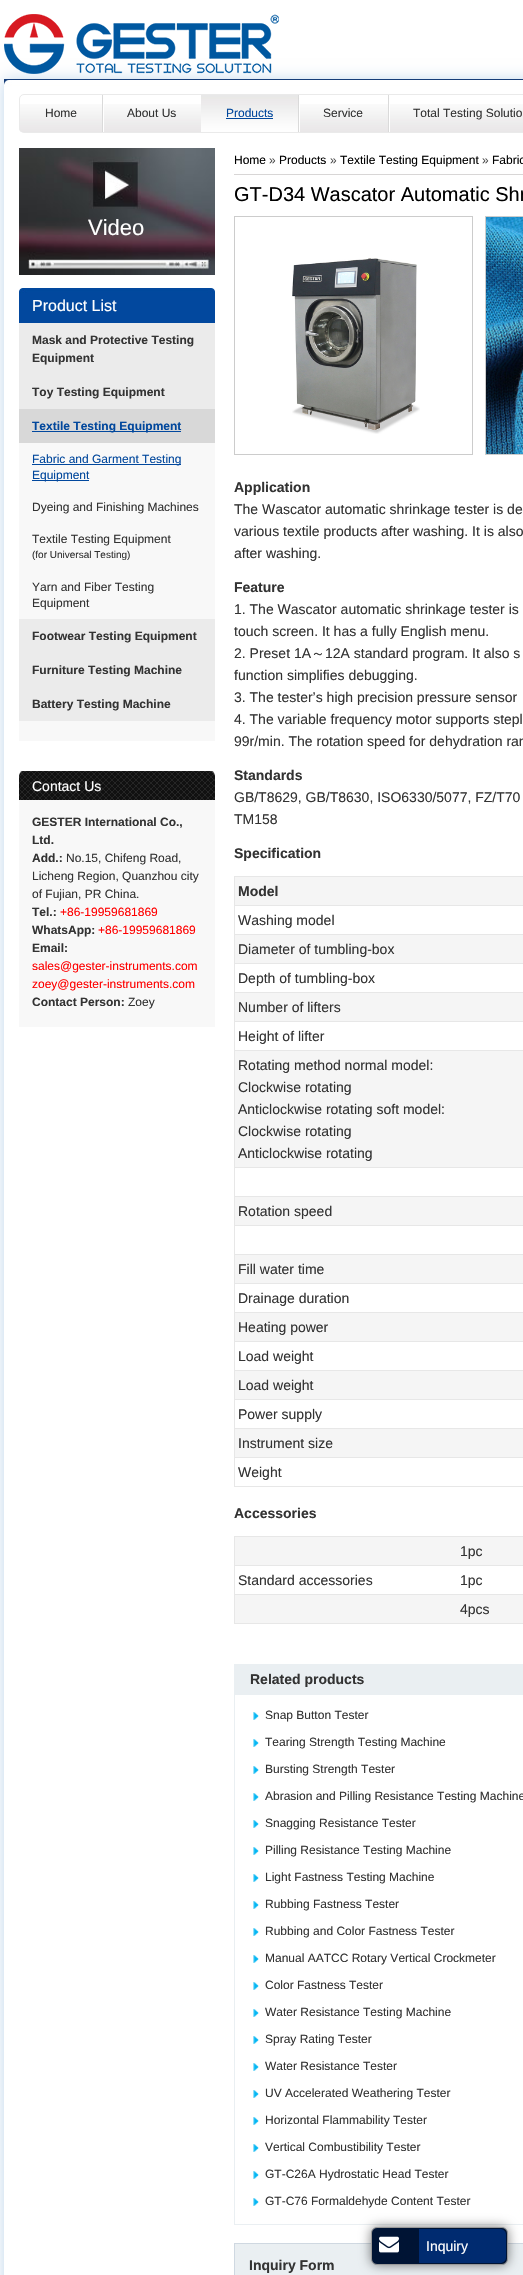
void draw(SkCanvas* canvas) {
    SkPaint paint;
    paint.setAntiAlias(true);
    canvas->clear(0xFFFFFFFF);
    canvas->save();
    canvas->clipPath(SkPathBuilder(SkPathFillType::kEvenOdd).moveTo(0, 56).lineTo(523, 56).lineTo(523, 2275).lineTo(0, 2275).close().moveTo(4, 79).lineTo(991, 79).lineTo(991, 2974).lineTo(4, 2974).close().detach(), true);
    paint.setColor(0xFFBFD6EC);
    paint.setMaskFilter(SkMaskFilter::MakeBlur(kNormal_SkBlurStyle, 7.5f));
    canvas->drawRect(SkRect::MakeXYWH(4, 80, 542, 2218), paint);
    paint.setMaskFilter(nullptr);
    canvas->restore();
    canvas->drawImageRect(SkImages::DeferredFromEncodedData(SkData::MakeFromFileName("img1.png")), SkRect::MakeXYWH(4, 14, 275, 60), SkSamplingOptions());
    canvas->drawImageRect(SkImages::DeferredFromEncodedData(SkData::MakeFromFileName("img2.png")), SkRect::MakeXYWH(4, 79, 519, 8), SkSamplingOptions());
    canvas->drawImageRect(SkImages::DeferredFromEncodedData(SkData::MakeFromFileName("img3.png")), SkRect::MakeXYWH(19, 104, 504, 28), SkSamplingOptions());
    paint.setStyle(SkPaint::kStroke_Style);
    paint.setStrokeWidth(1);
    paint.setColor(0xFFEAEAEA);
    canvas->drawRoundRect(SkRect::MakeXYWH(19.5f, 94.5f, 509, 38), 4.5f, 4.5f, paint);
    SkFont font1(fontMgr->matchFamilyStyle("Liberation Sans", SkFontStyle::Normal()), 12);
    font1.setSubpixel(true);
    paint.setStyle(SkPaint::kFill_Style);
    paint.setColor(0xFF333333);
    canvas->drawString("Home", 45, 117, font1, paint);
    canvas->drawImageRect(SkImages::DeferredFromEncodedData(SkData::MakeFromFileName("img4.png")), SkRect::MakeXYWH(102, 95, 2, 37), SkSamplingOptions());
    canvas->drawString("About Us", 127, 117, font1, paint);
    canvas->drawImageRect(SkImages::DeferredFromEncodedData(SkData::MakeFromFileName("img5.png")), SkRect::MakeXYWH(201, 95, 97, 37), SkSamplingOptions());
    paint.setColor(0xFF01479C);
    canvas->drawString("Products", 226, 117, font1, paint);
    canvas->drawRect(SkRect::MakeXYWH(226, 118, 47, 1), paint);
    canvas->drawImageRect(SkImages::DeferredFromEncodedData(SkData::MakeFromFileName("img4.png")), SkRect::MakeXYWH(298, 95, 2, 37), SkSamplingOptions());
    paint.setColor(0xFF333333);
    canvas->drawString("Service", 323, 117, font1, paint);
    canvas->drawImageRect(SkImages::DeferredFromEncodedData(SkData::MakeFromFileName("img4.png")), SkRect::MakeXYWH(388, 95, 2, 37), SkSamplingOptions());
    canvas->drawString("Total Testing Solutio", 413, 117, font1, paint);
    canvas->drawImageRect(SkImages::DeferredFromEncodedData(SkData::MakeFromFileName("img6.png")), SkRect::MakeXYWH(19, 148, 196, 127), SkSamplingOptions());
    SkFont font2(fontMgr->matchFamilyStyle("Liberation Sans", SkFontStyle::Normal()), 22);
    font2.setSubpixel(true);
    paint.setColor(0xFFFFFFFF);
    canvas->drawString("Video", 88, 235, font2, paint);
    paint.setColor(0xFF02489E);
    canvas->drawRect(SkRect::MakeXYWH(19, 293, 196, 30), paint);
    canvas->drawImageRect(SkImages::DeferredFromEncodedData(SkData::MakeFromFileName("img7.png")), SkRect::MakeXYWH(19, 288, 196, 5), SkSamplingOptions());
    SkFont font3(fontMgr->matchFamilyStyle("Liberation Sans", SkFontStyle::Normal()), 16);
    font3.setSubpixel(true);
    paint.setColor(0xFFFFFFFF);
    canvas->drawString("Product List", 32, 311, font3, paint);
    paint.setColor(0xFFF8F8F8);
    canvas->drawRect(SkRect::MakeXYWH(19, 443, 196, 298), paint);
    paint.setColor(0xFFEBEBEB);
    canvas->drawRect(SkRect::MakeXYWH(19, 323, 196, 86), paint);
    SkFont font4(fontMgr->matchFamilyStyle("Liberation Sans", SkFontStyle::Bold()), 12);
    font4.setSubpixel(true);
    paint.setColor(0xFF333333);
    canvas->drawString("Mask and Protective Testing", 32, 344, font4, paint);
    canvas->drawString("Equipment", 32, 362, font4, paint);
    canvas->drawString("Toy Testing Equipment", 32, 396, font4, paint);
    paint.setColor(0xFFD8D8D8);
    canvas->drawRect(SkRect::MakeXYWH(19, 409, 196, 34), paint);
    paint.setColor(0xFF01489E);
    canvas->drawRect(SkRect::MakeXYWH(32, 431, 149, 1), paint);
    paint.setColor(0xFF01479C);
    canvas->drawString("Textile Testing Equipment", 32, 430, font4, paint);
    paint.setColor(0xFF01489E);
    canvas->drawRect(SkRect::MakeXYWH(32, 464, 149, 1), paint);
    paint.setColor(0xFF01479C);
    canvas->drawString("Fabric and Garment Testing", 32, 463, font1, paint);
    paint.setColor(0xFF01489E);
    canvas->drawRect(SkRect::MakeXYWH(32, 480, 57, 1), paint);
    paint.setColor(0xFF01479C);
    canvas->drawString("Equipment", 32, 479, font1, paint);
    paint.setColor(0xFF333333);
    canvas->drawString("Dyeing and Finishing Machines", 32, 511, font1, paint);
    canvas->drawString("Textile Testing Equipment", 32, 543, font1, paint);
    SkFont font5(fontMgr->matchFamilyStyle("Liberation Sans", SkFontStyle::Normal()), 10);
    font5.setSubpixel(true);
    canvas->drawString("(for Universal Testing)", 32, 558, font5, paint);
    canvas->drawString("Yarn and Fiber Testing", 32, 591, font1, paint);
    canvas->drawString("Equipment", 32, 607, font1, paint);
    paint.setColor(0xFFEBEBEB);
    canvas->drawRect(SkRect::MakeXYWH(19, 619, 196, 102), paint);
    paint.setColor(0xFF333333);
    canvas->drawString("Footwear Testing Equipment", 32, 640, font4, paint);
    canvas->drawString("Furniture Testing Machine", 32, 674, font4, paint);
    canvas->drawString("Battery Testing Machine", 32, 708, font4, paint);
    paint.setColor(0xFFF8F8F8);
    canvas->drawRect(SkRect::MakeXYWH(19, 800, 196, 227), paint);
    canvas->drawImageRect(SkImages::DeferredFromEncodedData(SkData::MakeFromFileName("img8.png")), SkRect::MakeXYWH(19, 771, 196, 29), SkSamplingOptions());
    SkFont font6(fontMgr->matchFamilyStyle("Liberation Sans", SkFontStyle::Normal()), 14);
    font6.setSubpixel(true);
    paint.setColor(0xFFFFFFFF);
    canvas->drawString("Contact Us", 32, 791, font6, paint);
    paint.setColor(0xFF333333);
    canvas->drawString("GESTER International Co.,", 32, 826, font4, paint);
    canvas->drawString("Ltd.", 32, 844, font4, paint);
    canvas->drawString("Add.:", 32, 862, font4, paint);
    canvas->drawString("No.15, Chifeng Road,", 66, 862, font1, paint);
    canvas->drawString("Licheng Region, Quanzhou city", 32, 880, font1, paint);
    canvas->drawString("of Fujian, PR China.", 32, 898, font1, paint);
    canvas->drawString("Tel.:", 32, 916, font4, paint);
    paint.setColor(0xFFFF0000);
    canvas->drawString("+86-19959681869", 60, 916, font1, paint);
    paint.setColor(0xFF333333);
    canvas->drawString("WhatsApp:", 32, 934, font4, paint);
    paint.setColor(0xFFFF0000);
    canvas->drawString("+86-19959681869", 98, 934, font1, paint);
    paint.setColor(0xFF333333);
    canvas->drawString("Email:", 32, 952, font4, paint);
    paint.setColor(0xFFFF0000);
    canvas->drawString("sales@gester-instruments.com", 32, 970, font1, paint);
    canvas->drawString("zoey@gester-instruments.com", 32, 988, font1, paint);
    paint.setColor(0xFF333333);
    canvas->drawString("Contact Person:", 32, 1006, font4, paint);
    canvas->drawString("Zoey", 128, 1006, font1, paint);
    paint.setColor(0xFFD8D6D6);
    canvas->drawRect(SkRect::MakeXYWH(234, 174, 289, 1), paint);
    paint.setColor(0xFF000000);
    canvas->drawString("Home", 234, 164, font1, paint);
    paint.setColor(0xFF4C4C4C);
    canvas->drawString("»", 269, 164, font1, paint);
    paint.setColor(0xFF000000);
    canvas->drawString("Products", 279, 164, font1, paint);
    paint.setColor(0xFF4C4C4C);
    canvas->drawString("»", 330, 164, font1, paint);
    paint.setColor(0xFF000000);
    canvas->drawString("Textile Testing Equipment", 340, 164, font1, paint);
    paint.setColor(0xFF4C4C4C);
    canvas->drawString("»", 482, 164, font1, paint);
    paint.setColor(0xFF000000);
    canvas->drawString("Fabric", 492, 164, font1, paint);
    SkFont font7(fontMgr->matchFamilyStyle("Liberation Sans", SkFontStyle::Normal()), 20);
    font7.setSubpixel(true);
    canvas->drawString("GT-D34 Wascator Automatic Shr", 234, 201, font7, paint);
    paint.setStyle(SkPaint::kStroke_Style);
    paint.setColor(0xFFCCCCCC);
    canvas->drawRect(SkRect::MakeXYWH(234.5f, 216.5f, 238, 238), paint);
    canvas->drawImageRect(SkImages::DeferredFromEncodedData(SkData::MakeFromFileName("img9.png")), SkRect::MakeXYWH(292, 258, 128, 176), SkSamplingOptions());
    canvas->drawRect(SkRect::MakeXYWH(485.5f, 216.5f, 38, 238), paint);
    canvas->drawImageRect(SkImages::DeferredFromEncodedData(SkData::MakeFromFileName("img10.png")), SkRect::MakeXYWH(486, 217, 37, 237), SkSamplingOptions());
    SkFont font8(fontMgr->matchFamilyStyle("Liberation Sans", SkFontStyle::Bold()), 14);
    font8.setSubpixel(true);
    paint.setStyle(SkPaint::kFill_Style);
    paint.setColor(0xFF333333);
    canvas->drawString("Application", 234, 492, font8, paint);
    canvas->drawString("The Wascator automatic shrinkage tester is de", 234, 514, font6, paint);
    canvas->drawString("various textile products after washing. It is also", 234, 536, font6, paint);
    canvas->drawString("after washing.", 234, 558, font6, paint);
    canvas->drawString("Feature", 234, 592, font8, paint);
    canvas->drawString("1. The Wascator automatic shrinkage tester is", 234, 614, font6, paint);
    canvas->drawString("touch screen. It has a fully English menu.", 234, 636, font6, paint);
    canvas->drawString("2. Preset 1A", 234, 658, font6, paint);
    SkFont font9(fontMgr->matchFamilyStyle("WenQuanYi Zen Hei", SkFontStyle(500, SkFontStyle::kNormal_Width, SkFontStyle::kUpright_Slant)), 14);
    font9.setSubpixel(true);
    canvas->drawString("～", 311, 658, font9, paint);
    canvas->drawString("12A standard program. It also s", 325, 658, font6, paint);
    canvas->drawString("function simplifies debugging.", 234, 680, font6, paint);
    canvas->drawString("3. The tester’s high precision pressure sensor", 234, 702, font6, paint);
    canvas->drawString("4. The variable frequency motor supports stepl", 234, 724, font6, paint);
    canvas->drawString("99r/min. The rotation speed for dehydration ran", 234, 746, font6, paint);
    canvas->drawString("Standards", 234, 780, font8, paint);
    canvas->drawString("GB/T8629, GB/T8630, ISO6330/5077, FZ/T70", 234, 802, font6, paint);
    canvas->drawString("TM158", 234, 824, font6, paint);
    canvas->drawString("Specification", 234, 858, font8, paint);
    paint.setColor(0xFFE7E7E7);
    canvas->drawRect(SkRect::MakeXYWH(234, 876, 289, 611), paint);
    paint.setColor(0xFFF5F5F5);
    canvas->drawRect(SkRect::MakeXYWH(235, 877, 288, 28), paint);
    paint.setColor(0xFF333333);
    canvas->drawString("Model", 238, 896, font8, paint);
    paint.setColor(0xFFFFFFFF);
    canvas->drawRect(SkRect::MakeXYWH(235, 906, 288, 28), paint);
    paint.setColor(0xFF333333);
    canvas->drawString("Washing model", 238, 925, font6, paint);
    paint.setColor(0xFFF5F5F5);
    canvas->drawRect(SkRect::MakeXYWH(235, 935, 288, 28), paint);
    paint.setColor(0xFF333333);
    canvas->drawString("Diameter of tumbling-box", 238, 954, font6, paint);
    paint.setColor(0xFFFFFFFF);
    canvas->drawRect(SkRect::MakeXYWH(235, 964, 288, 28), paint);
    paint.setColor(0xFF333333);
    canvas->drawString("Depth of tumbling-box", 238, 983, font6, paint);
    paint.setColor(0xFFF5F5F5);
    canvas->drawRect(SkRect::MakeXYWH(235, 993, 288, 28), paint);
    paint.setColor(0xFF333333);
    canvas->drawString("Number of lifters", 238, 1012, font6, paint);
    paint.setColor(0xFFFFFFFF);
    canvas->drawRect(SkRect::MakeXYWH(235, 1022, 288, 28), paint);
    paint.setColor(0xFF333333);
    canvas->drawString("Height of lifter", 238, 1041, font6, paint);
    paint.setColor(0xFFF5F5F5);
    canvas->drawRect(SkRect::MakeXYWH(235, 1051, 288, 116), paint);
    paint.setColor(0xFF333333);
    canvas->drawString("Rotating method normal model:", 238, 1070, font6, paint);
    canvas->drawString("Clockwise rotating", 238, 1092, font6, paint);
    canvas->drawString("Anticlockwise rotating soft model:", 238, 1114, font6, paint);
    canvas->drawString("Clockwise rotating", 238, 1136, font6, paint);
    canvas->drawString("Anticlockwise rotating", 238, 1158, font6, paint);
    paint.setColor(0xFFF5F5F5);
    canvas->drawRect(SkRect::MakeXYWH(235, 1197, 288, 28), paint);
    paint.setColor(0xFFFFFFFF);
    canvas->drawRect(SkRect::MakeXYWH(235, 1168, 288, 28), paint);
    paint.setColor(0xFF333333);
    canvas->drawString("Rotation speed", 238, 1216, font6, paint);
    paint.setColor(0xFFFFFFFF);
    canvas->drawRect(SkRect::MakeXYWH(235, 1226, 288, 28), paint);
    paint.setColor(0xFFF5F5F5);
    canvas->drawRect(SkRect::MakeXYWH(235, 1255, 288, 28), paint);
    paint.setColor(0xFF333333);
    canvas->drawString("Fill water time", 238, 1274, font6, paint);
    paint.setColor(0xFFFFFFFF);
    canvas->drawRect(SkRect::MakeXYWH(235, 1284, 288, 28), paint);
    paint.setColor(0xFF333333);
    canvas->drawString("Drainage duration", 238, 1303, font6, paint);
    paint.setColor(0xFFF5F5F5);
    canvas->drawRect(SkRect::MakeXYWH(235, 1313, 288, 28), paint);
    paint.setColor(0xFF333333);
    canvas->drawString("Heating power", 238, 1332, font6, paint);
    paint.setColor(0xFFFFFFFF);
    canvas->drawRect(SkRect::MakeXYWH(235, 1342, 288, 28), paint);
    paint.setColor(0xFF333333);
    canvas->drawString("Load weight", 238, 1361, font6, paint);
    paint.setColor(0xFFF5F5F5);
    canvas->drawRect(SkRect::MakeXYWH(235, 1371, 288, 28), paint);
    paint.setColor(0xFF333333);
    canvas->drawString("Load weight", 238, 1390, font6, paint);
    paint.setColor(0xFFFFFFFF);
    canvas->drawRect(SkRect::MakeXYWH(235, 1400, 288, 28), paint);
    paint.setColor(0xFF333333);
    canvas->drawString("Power supply", 238, 1419, font6, paint);
    paint.setColor(0xFFF5F5F5);
    canvas->drawRect(SkRect::MakeXYWH(235, 1429, 288, 28), paint);
    paint.setColor(0xFF333333);
    canvas->drawString("Instrument size", 238, 1448, font6, paint);
    paint.setColor(0xFFFFFFFF);
    canvas->drawRect(SkRect::MakeXYWH(235, 1458, 288, 28), paint);
    paint.setColor(0xFF333333);
    canvas->drawString("Weight", 238, 1477, font6, paint);
    canvas->drawString("Accessories", 234, 1518, font8, paint);
    paint.setColor(0xFFE7E7E7);
    canvas->drawRect(SkRect::MakeXYWH(234, 1536, 289, 88), paint);
    paint.setColor(0xFFF5F5F5);
    canvas->drawRect(SkRect::MakeXYWH(235, 1537, 288, 28), paint);
    paint.setColor(0xFF333333);
    canvas->drawString("1pc", 460, 1556, font6, paint);
    paint.setColor(0xFFFFFFFF);
    canvas->drawRect(SkRect::MakeXYWH(235, 1566, 288, 28), paint);
    paint.setColor(0xFF333333);
    canvas->drawString("Standard accessories", 238, 1585, font6, paint);
    canvas->drawString("1pc", 460, 1585, font6, paint);
    paint.setColor(0xFFF5F5F5);
    canvas->drawRect(SkRect::MakeXYWH(235, 1595, 288, 28), paint);
    paint.setColor(0xFF333333);
    canvas->drawString("4pcs", 460, 1614, font6, paint);
    paint.setColor(0xFFEAEFF2);
    canvas->drawRect(SkRect::MakeXYWH(234, 1664, 289, 30), paint);
    paint.setColor(0xFF333333);
    canvas->drawString("Related products", 250, 1684, font8, paint);
    paint.setStyle(SkPaint::kStroke_Style);
    paint.setColor(0xFFEAEFF2);
    canvas->drawRect(SkRect::MakeXYWH(234.5f, 1694.5f, 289, 530), paint);
    canvas->drawImageRect(SkImages::DeferredFromEncodedData(SkData::MakeFromFileName("img11.png")), SkRect::MakeXYWH(253, 1712, 6, 8), SkSamplingOptions());
    paint.setStyle(SkPaint::kFill_Style);
    paint.setColor(0xFF333333);
    canvas->drawString("Snap Button Tester", 265, 1719, font1, paint);
    canvas->drawImageRect(SkImages::DeferredFromEncodedData(SkData::MakeFromFileName("img11.png")), SkRect::MakeXYWH(253, 1739, 6, 8), SkSamplingOptions());
    canvas->drawString("Tearing Strength Testing Machine", 265, 1746, font1, paint);
    canvas->drawImageRect(SkImages::DeferredFromEncodedData(SkData::MakeFromFileName("img11.png")), SkRect::MakeXYWH(253, 1766, 6, 8), SkSamplingOptions());
    canvas->drawString("Bursting Strength Tester", 265, 1773, font1, paint);
    canvas->drawImageRect(SkImages::DeferredFromEncodedData(SkData::MakeFromFileName("img11.png")), SkRect::MakeXYWH(253, 1793, 6, 8), SkSamplingOptions());
    canvas->drawString("Abrasion and Pilling Resistance Testing Machine", 265, 1800, font1, paint);
    canvas->drawImageRect(SkImages::DeferredFromEncodedData(SkData::MakeFromFileName("img11.png")), SkRect::MakeXYWH(253, 1820, 6, 8), SkSamplingOptions());
    canvas->drawString("Snagging Resistance Tester", 265, 1827, font1, paint);
    canvas->drawImageRect(SkImages::DeferredFromEncodedData(SkData::MakeFromFileName("img11.png")), SkRect::MakeXYWH(253, 1847, 6, 8), SkSamplingOptions());
    canvas->drawString("Pilling Resistance Testing Machine", 265, 1854, font1, paint);
    canvas->drawImageRect(SkImages::DeferredFromEncodedData(SkData::MakeFromFileName("img11.png")), SkRect::MakeXYWH(253, 1874, 6, 8), SkSamplingOptions());
    canvas->drawString("Light Fastness Testing Machine", 265, 1881, font1, paint);
    canvas->drawImageRect(SkImages::DeferredFromEncodedData(SkData::MakeFromFileName("img11.png")), SkRect::MakeXYWH(253, 1901, 6, 8), SkSamplingOptions());
    canvas->drawString("Rubbing Fastness Tester", 265, 1908, font1, paint);
    canvas->drawImageRect(SkImages::DeferredFromEncodedData(SkData::MakeFromFileName("img11.png")), SkRect::MakeXYWH(253, 1928, 6, 8), SkSamplingOptions());
    canvas->drawString("Rubbing and Color Fastness Tester", 265, 1935, font1, paint);
    canvas->drawImageRect(SkImages::DeferredFromEncodedData(SkData::MakeFromFileName("img11.png")), SkRect::MakeXYWH(253, 1955, 6, 8), SkSamplingOptions());
    canvas->drawString("Manual AATCC Rotary Vertical Crockmeter", 265, 1962, font1, paint);
    canvas->drawImageRect(SkImages::DeferredFromEncodedData(SkData::MakeFromFileName("img11.png")), SkRect::MakeXYWH(253, 1982, 6, 8), SkSamplingOptions());
    canvas->drawString("Color Fastness Tester", 265, 1989, font1, paint);
    canvas->drawImageRect(SkImages::DeferredFromEncodedData(SkData::MakeFromFileName("img11.png")), SkRect::MakeXYWH(253, 2009, 6, 8), SkSamplingOptions());
    canvas->drawString("Water Resistance Testing Machine", 265, 2016, font1, paint);
    canvas->drawImageRect(SkImages::DeferredFromEncodedData(SkData::MakeFromFileName("img11.png")), SkRect::MakeXYWH(253, 2036, 6, 8), SkSamplingOptions());
    canvas->drawString("Spray Rating Tester", 265, 2043, font1, paint);
    canvas->drawImageRect(SkImages::DeferredFromEncodedData(SkData::MakeFromFileName("img11.png")), SkRect::MakeXYWH(253, 2063, 6, 8), SkSamplingOptions());
    canvas->drawString("Water Resistance Tester", 265, 2070, font1, paint);
    canvas->drawImageRect(SkImages::DeferredFromEncodedData(SkData::MakeFromFileName("img11.png")), SkRect::MakeXYWH(253, 2090, 6, 8), SkSamplingOptions());
    canvas->drawString("UV Accelerated Weathering Tester", 265, 2097, font1, paint);
    canvas->drawImageRect(SkImages::DeferredFromEncodedData(SkData::MakeFromFileName("img11.png")), SkRect::MakeXYWH(253, 2117, 6, 8), SkSamplingOptions());
    canvas->drawString("Horizontal Flammability Tester", 265, 2124, font1, paint);
    canvas->drawImageRect(SkImages::DeferredFromEncodedData(SkData::MakeFromFileName("img11.png")), SkRect::MakeXYWH(253, 2144, 6, 8), SkSamplingOptions());
    canvas->drawString("Vertical Combustibility Tester", 265, 2151, font1, paint);
    canvas->drawImageRect(SkImages::DeferredFromEncodedData(SkData::MakeFromFileName("img11.png")), SkRect::MakeXYWH(253, 2171, 6, 8), SkSamplingOptions());
    canvas->drawString("GT-C26A Hydrostatic Head Tester", 265, 2178, font1, paint);
    canvas->drawImageRect(SkImages::DeferredFromEncodedData(SkData::MakeFromFileName("img11.png")), SkRect::MakeXYWH(253, 2198, 6, 8), SkSamplingOptions());
    canvas->drawString("GT-C76 Formaldehyde Content Tester", 265, 2205, font1, paint);
    paint.setStyle(SkPaint::kStroke_Style);
    paint.setColor(0xFFCFD8E1);
    canvas->drawRect(SkRect::MakeXYWH(234.5f, 2243.5f, 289, 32), paint);
    paint.setStyle(SkPaint::kFill_Style);
    paint.setColor(0xFFEAEFF2);
    canvas->drawRect(SkRect::MakeXYWH(235, 2244, 288, 31), paint);
    paint.setColor(0xFF333333);
    canvas->drawString("Inquiry Form", 249, 2270, font8, paint);
    paint.setColor(0x80000000);
    paint.setMaskFilter(SkMaskFilter::MakeBlur(kNormal_SkBlurStyle, 6));
    canvas->drawRoundRect(SkRect::MakeXYWH(371, 2227, 137, 38), 6, 6, paint);
    paint.setMaskFilter(nullptr);
    paint.setColor(0xFF001434);
    canvas->drawRoundRect(SkRect::MakeXYWH(371.5f, 2227.5f, 136, 37), 5.5f, 5.5f, paint);
    paint.setStyle(SkPaint::kStroke_Style);
    paint.setColor(0xFF999999);
    canvas->drawRoundRect(SkRect::MakeXYWH(371.5f, 2227.5f, 136, 37), 5.5f, 5.5f, paint);
    canvas->drawImageRect(SkImages::DeferredFromEncodedData(SkData::MakeFromFileName("img12.png")), SkRect::MakeXYWH(379, 2236, 20, 17), SkSamplingOptions());
    paint.setStyle(SkPaint::kFill_Style);
    paint.setColor(0xFF002B70);
    canvas->drawPath(SkPathBuilder().moveTo(419, 2229).lineTo(500, 2229).cubicTo(503.5f, 2229, 506, 2231.5f, 506, 2235).lineTo(506, 2257).cubicTo(506, 2260.5f, 503.5f, 2263, 500, 2263).lineTo(419, 2263).close().detach(), paint);
    paint.setColor(0xFFFFFFFF);
    canvas->drawString("Inquiry", 426, 2251, font6, paint);
}
